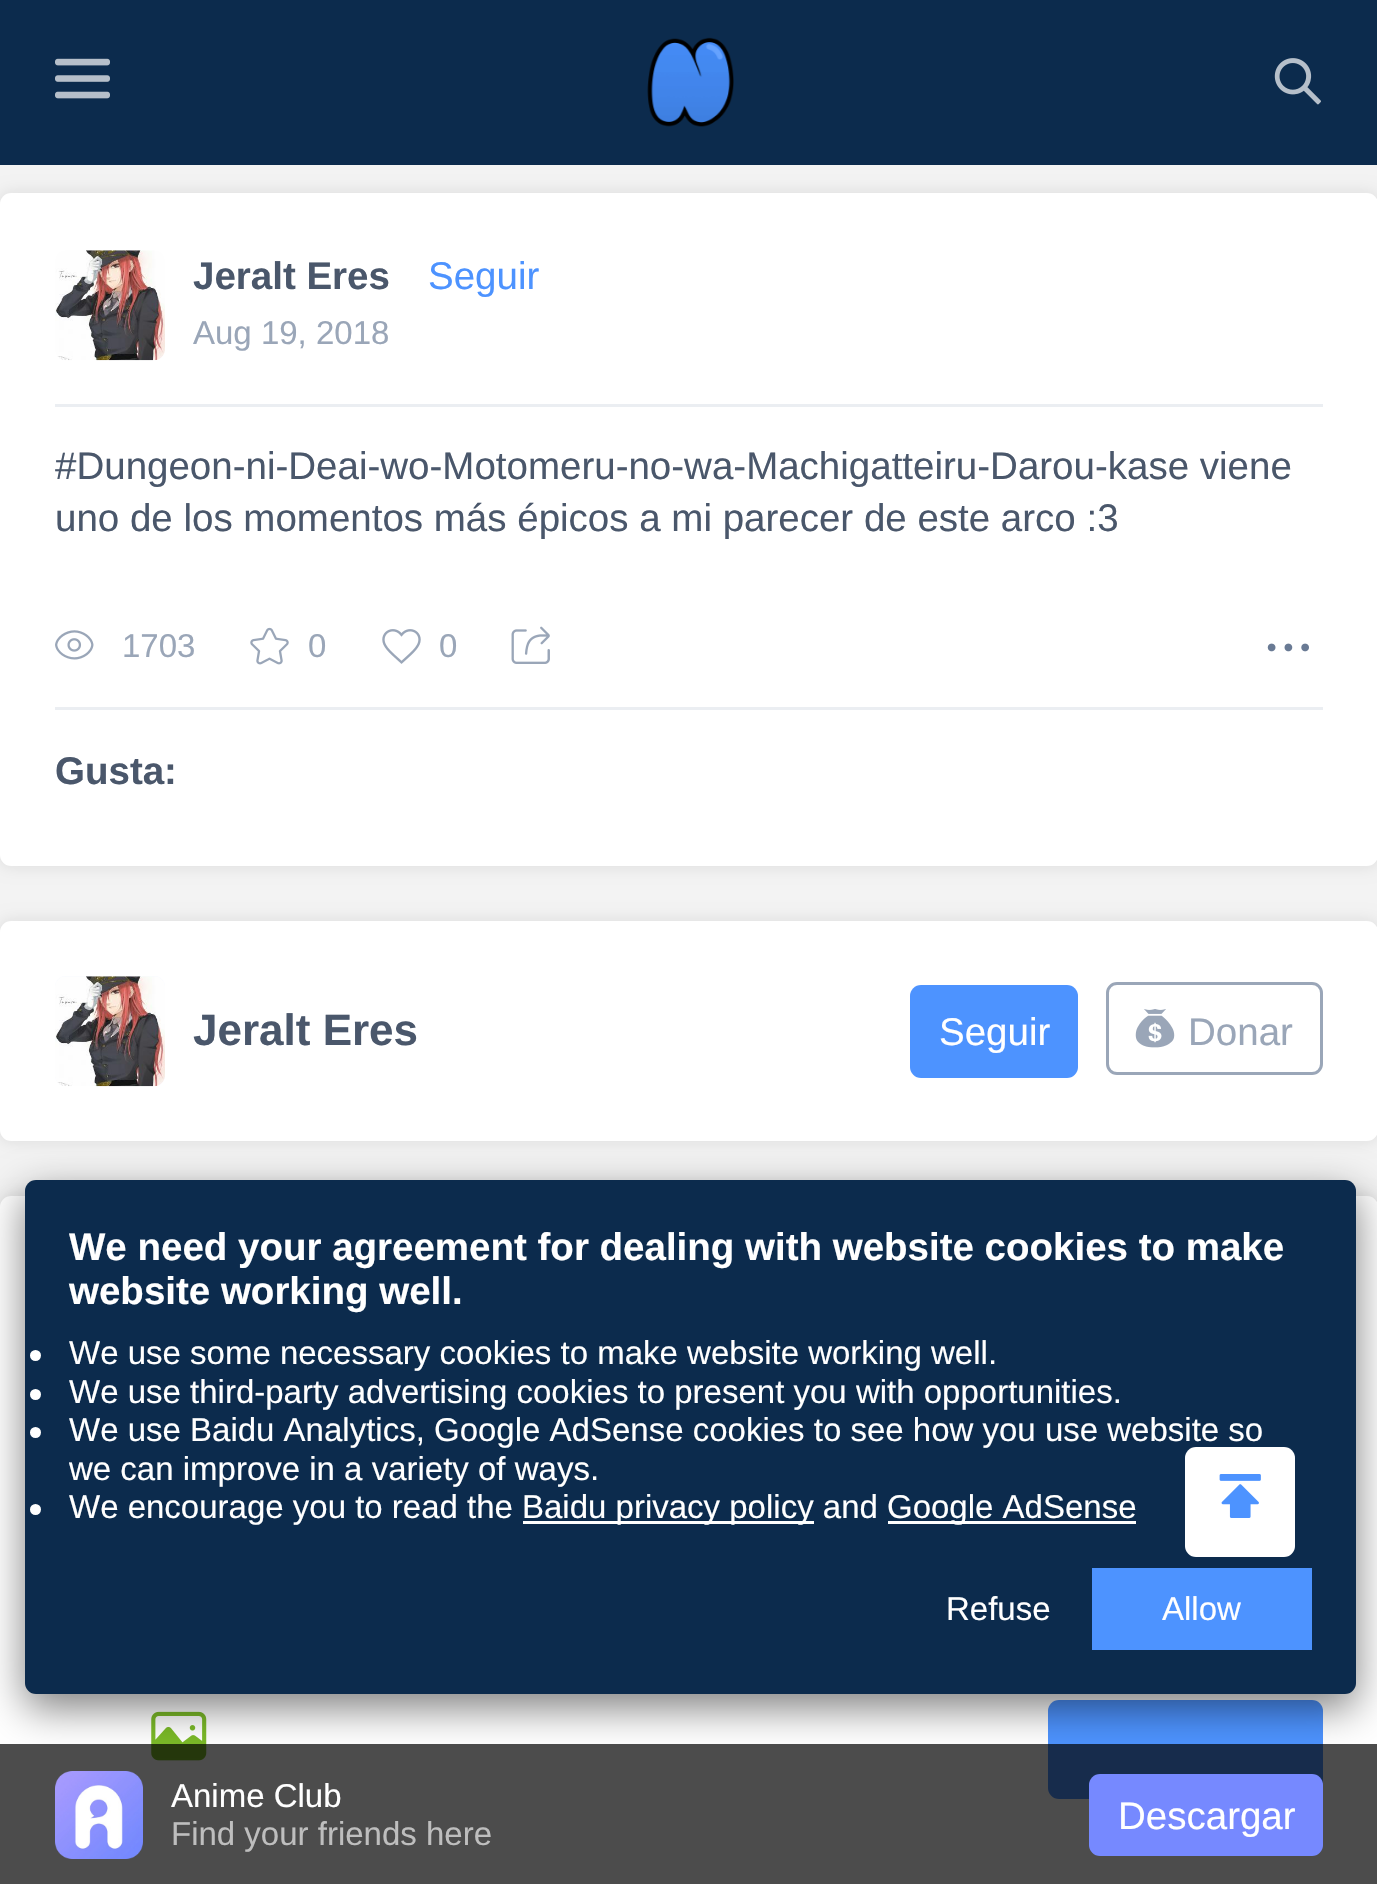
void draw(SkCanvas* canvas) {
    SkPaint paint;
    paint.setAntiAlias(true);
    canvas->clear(0xFFF3F3F3);
    paint.setColor(0xFF0C2B4D);
    canvas->drawRect(SkRect::MakeXYWH(0, 0, 1377, 165), paint);
    canvas->drawImageRect(SkImages::DeferredFromEncodedData(SkData::MakeFromFileName("img1.png")), SkRect::MakeXYWH(55, 58, 55, 41), SkSamplingOptions());
    canvas->drawImageRect(SkImages::DeferredFromEncodedData(SkData::MakeFromFileName("img2.png")), SkRect::MakeXYWH(647, 37, 87, 90), SkSamplingOptions());
    canvas->drawImageRect(SkImages::DeferredFromEncodedData(SkData::MakeFromFileName("img3.png")), SkRect::MakeXYWH(1274, 58, 47, 47), SkSamplingOptions());
    paint.setColor(0x1A000000);
    paint.setMaskFilter(SkMaskFilter::MakeBlur(kNormal_SkBlurStyle, 8));
    canvas->drawRoundRect(SkRect::MakeXYWH(0, 193, 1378, 673), 11, 11, paint);
    paint.setMaskFilter(nullptr);
    paint.setColor(0xFFFFFFFF);
    canvas->drawRoundRect(SkRect::MakeXYWH(0, 193, 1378, 673), 11, 11, paint);
    paint.setColor(0xFFEBEEF2);
    canvas->drawRect(SkRect::MakeXYWH(55, 404, 1268, 3), paint);
    canvas->drawImageRect(SkImages::DeferredFromEncodedData(SkData::MakeFromFileName("img4.png")), SkRect::MakeXYWH(55, 250, 110, 111), SkSamplingOptions());
    SkFont font1(fontMgr->matchFamilyStyle("Liberation Sans", SkFontStyle::Bold()), 38.5f);
    font1.setSubpixel(true);
    paint.setColor(0xFF4A576B);
    canvas->drawString("Jeralt Eres", 193, 289, font1, paint);
    SkFont font2(fontMgr->matchFamilyStyle("Liberation Sans", SkFontStyle::Normal()), 38.5f);
    font2.setSubpixel(true);
    paint.setColor(0xFF4D93FF);
    canvas->drawString("Seguir", 428, 289, font2, paint);
    SkFont font3(fontMgr->matchFamilyStyle("Liberation Sans", SkFontStyle::Normal()), 33);
    font3.setSubpixel(true);
    paint.setColor(0xFF9AA6B8);
    canvas->drawString("Aug 19, 2018", 193, 344, font3, paint);
    paint.setColor(0xFF4A576B);
    canvas->drawString("#Dungeon-ni-Deai-wo-Motomeru-no-wa-Machigatteiru-Darou-kase viene", 55, 479, font2, paint);
    canvas->drawString("uno de los momentos más épicos a mi parecer de este arco :3", 55, 531, font2, paint);
    paint.setColor(0xFFEBEEF2);
    canvas->drawRect(SkRect::MakeXYWH(55, 707, 1268, 3), paint);
    canvas->drawImageRect(SkImages::DeferredFromEncodedData(SkData::MakeFromFileName("img5.png")), SkRect::MakeXYWH(55, 630, 39, 30), SkSamplingOptions());
    paint.setColor(0xFF9AA6B8);
    canvas->drawString("1703", 122, 657, font3, paint);
    canvas->drawImageRect(SkImages::DeferredFromEncodedData(SkData::MakeFromFileName("img6.png")), SkRect::MakeXYWH(250, 627, 39, 38), SkSamplingOptions());
    canvas->drawString("0", 308, 657, font3, paint);
    canvas->drawImageRect(SkImages::DeferredFromEncodedData(SkData::MakeFromFileName("img7.png")), SkRect::MakeXYWH(382, 629, 39, 35), SkSamplingOptions());
    canvas->drawString("0", 439, 657, font3, paint);
    canvas->drawImageRect(SkImages::DeferredFromEncodedData(SkData::MakeFromFileName("img8.png")), SkRect::MakeXYWH(511, 626, 39, 38), SkSamplingOptions());
    canvas->drawImageRect(SkImages::DeferredFromEncodedData(SkData::MakeFromFileName("img9.png")), SkRect::MakeXYWH(1267, 643, 42, 9), SkSamplingOptions());
    paint.setColor(0xFF4A576B);
    canvas->drawString("Gusta:", 55, 784, font1, paint);
    paint.setColor(0x1A000000);
    paint.setMaskFilter(SkMaskFilter::MakeBlur(kNormal_SkBlurStyle, 8));
    canvas->drawRoundRect(SkRect::MakeXYWH(0, 921, 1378, 220), 11, 11, paint);
    paint.setMaskFilter(nullptr);
    paint.setColor(0xFFFFFFFF);
    canvas->drawRoundRect(SkRect::MakeXYWH(0, 921, 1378, 220), 11, 11, paint);
    paint.setColor(0xFFF7FAFF);
    canvas->drawRoundRect(SkRect::MakeXYWH(55, 976, 110, 110), 11, 11, paint);
    canvas->drawImageRect(SkImages::DeferredFromEncodedData(SkData::MakeFromFileName("img10.png")), SkRect::MakeXYWH(55, 976, 110, 111), SkSamplingOptions());
    SkFont font4(fontMgr->matchFamilyStyle("Liberation Sans", SkFontStyle::Bold()), 44);
    font4.setSubpixel(true);
    paint.setColor(0xFF4A576B);
    canvas->drawString("Jeralt Eres", 193, 1045, font4, paint);
    paint.setColor(0xFF4D93FF);
    canvas->drawRoundRect(SkRect::MakeXYWH(910, 985, 168, 93), 11, 11, paint);
    paint.setColor(0xFFFFFFFF);
    canvas->drawString("Seguir", 939, 1045, font2, paint);
    paint.setStyle(SkPaint::kStroke_Style);
    paint.setStrokeWidth(3);
    paint.setColor(0xFF9AA6B8);
    canvas->drawRoundRect(SkRect::MakeXYWH(1107.5f, 983.5f, 214, 90), 9.5f, 9.5f, paint);
    canvas->drawImageRect(SkImages::DeferredFromEncodedData(SkData::MakeFromFileName("img11.png")), SkRect::MakeXYWH(1135, 1009, 40, 39), SkSamplingOptions());
    paint.setStyle(SkPaint::kFill_Style);
    canvas->drawString("Donar", 1188, 1045, font2, paint);
    paint.setColor(0x1A000000);
    paint.setMaskFilter(SkMaskFilter::MakeBlur(kNormal_SkBlurStyle, 8));
    canvas->drawRoundRect(SkRect::MakeXYWH(0, 1196, 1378, 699), 11, 11, paint);
    paint.setMaskFilter(nullptr);
    paint.setColor(0xFFFFFFFF);
    canvas->drawRoundRect(SkRect::MakeXYWH(0, 1196, 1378, 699), 11, 11, paint);
    canvas->drawImageRect(SkImages::DeferredFromEncodedData(SkData::MakeFromFileName("img12.png")), SkRect::MakeXYWH(151, 1711, 56, 50), SkSamplingOptions());
    paint.setColor(0xFF4D93FF);
    canvas->drawRoundRect(SkRect::MakeXYWH(1048, 1700, 275, 99), 11, 11, paint);
    paint.setColor(0x80000000);
    paint.setMaskFilter(SkMaskFilter::MakeBlur(kNormal_SkBlurStyle, 20.5f));
    canvas->drawRoundRect(SkRect::MakeXYWH(25, 1194, 1331, 514), 11, 11, paint);
    paint.setMaskFilter(nullptr);
    paint.setColor(0xFF0C2B4D);
    canvas->drawRoundRect(SkRect::MakeXYWH(25, 1180, 1331, 514), 11, 11, paint);
    paint.setColor(0xFFFFFFFF);
    canvas->drawString("We need your agreement for dealing with website cookies to make", 69, 1260, font1, paint);
    canvas->drawString("website working well.", 69, 1304, font1, paint);
    canvas->drawCircle(35.5f, 1355.5f, 5.5f, paint);
    canvas->drawString("We use some necessary cookies to make website working well.", 69, 1364, font3, paint);
    canvas->drawCircle(35.5f, 1394.5f, 5.5f, paint);
    canvas->drawString("We use third-party advertising cookies to present you with opportunities.", 69, 1403, font3, paint);
    canvas->drawCircle(35.5f, 1432.5f, 5.5f, paint);
    canvas->drawString("We use Baidu Analytics, Google AdSense cookies to see how you use website so", 69, 1441, font3, paint);
    canvas->drawString("we can improve in a variety of ways.", 69, 1480, font3, paint);
    canvas->drawCircle(35.5f, 1509.5f, 5.5f, paint);
    canvas->drawString("We encourage you to read the", 69, 1518, font3, paint);
    canvas->drawRect(SkRect::MakeXYWH(523, 1521, 291, 3), paint);
    canvas->drawString("Baidu privacy policy and", 522, 1518, font3, paint);
    canvas->drawRect(SkRect::MakeXYWH(888, 1521, 248, 3), paint);
    canvas->drawString("Google AdSense", 887, 1518, font3, paint);
    canvas->drawString("Refuse", 946, 1620, font3, paint);
    paint.setColor(0xFF4D93FF);
    canvas->drawRect(SkRect::MakeXYWH(1092, 1568, 220, 82), paint);
    paint.setColor(0xFFFFFFFF);
    canvas->drawString("Allow", 1162, 1620, font3, paint);
    canvas->drawRoundRect(SkRect::MakeXYWH(1185, 1447, 110, 110), 11, 11, paint);
    canvas->drawImageRect(SkImages::DeferredFromEncodedData(SkData::MakeFromFileName("img13.png")), SkRect::MakeXYWH(1219, 1474, 42, 44), SkSamplingOptions());
    paint.setColor(0xB3000000);
    canvas->drawRect(SkRect::MakeXYWH(0, 1744, 1377, 140), paint);
    canvas->drawImageRect(SkImages::DeferredFromEncodedData(SkData::MakeFromFileName("img14.png")), SkRect::MakeXYWH(55, 1771, 88, 88), SkSamplingOptions());
    paint.setColor(0xFFFFFFFF);
    canvas->drawString("Anime Club", 171, 1807, font3, paint);
    paint.setColor(0xFFBEBEBE);
    canvas->drawString("Find your friends here", 171, 1845, font3, paint);
    paint.setColor(0xFF7689FF);
    canvas->drawRoundRect(SkRect::MakeXYWH(1089, 1774, 234, 82), 11, 11, paint);
    paint.setColor(0xFFFFFFFF);
    canvas->drawString("Descargar", 1118, 1829, font2, paint);
}
